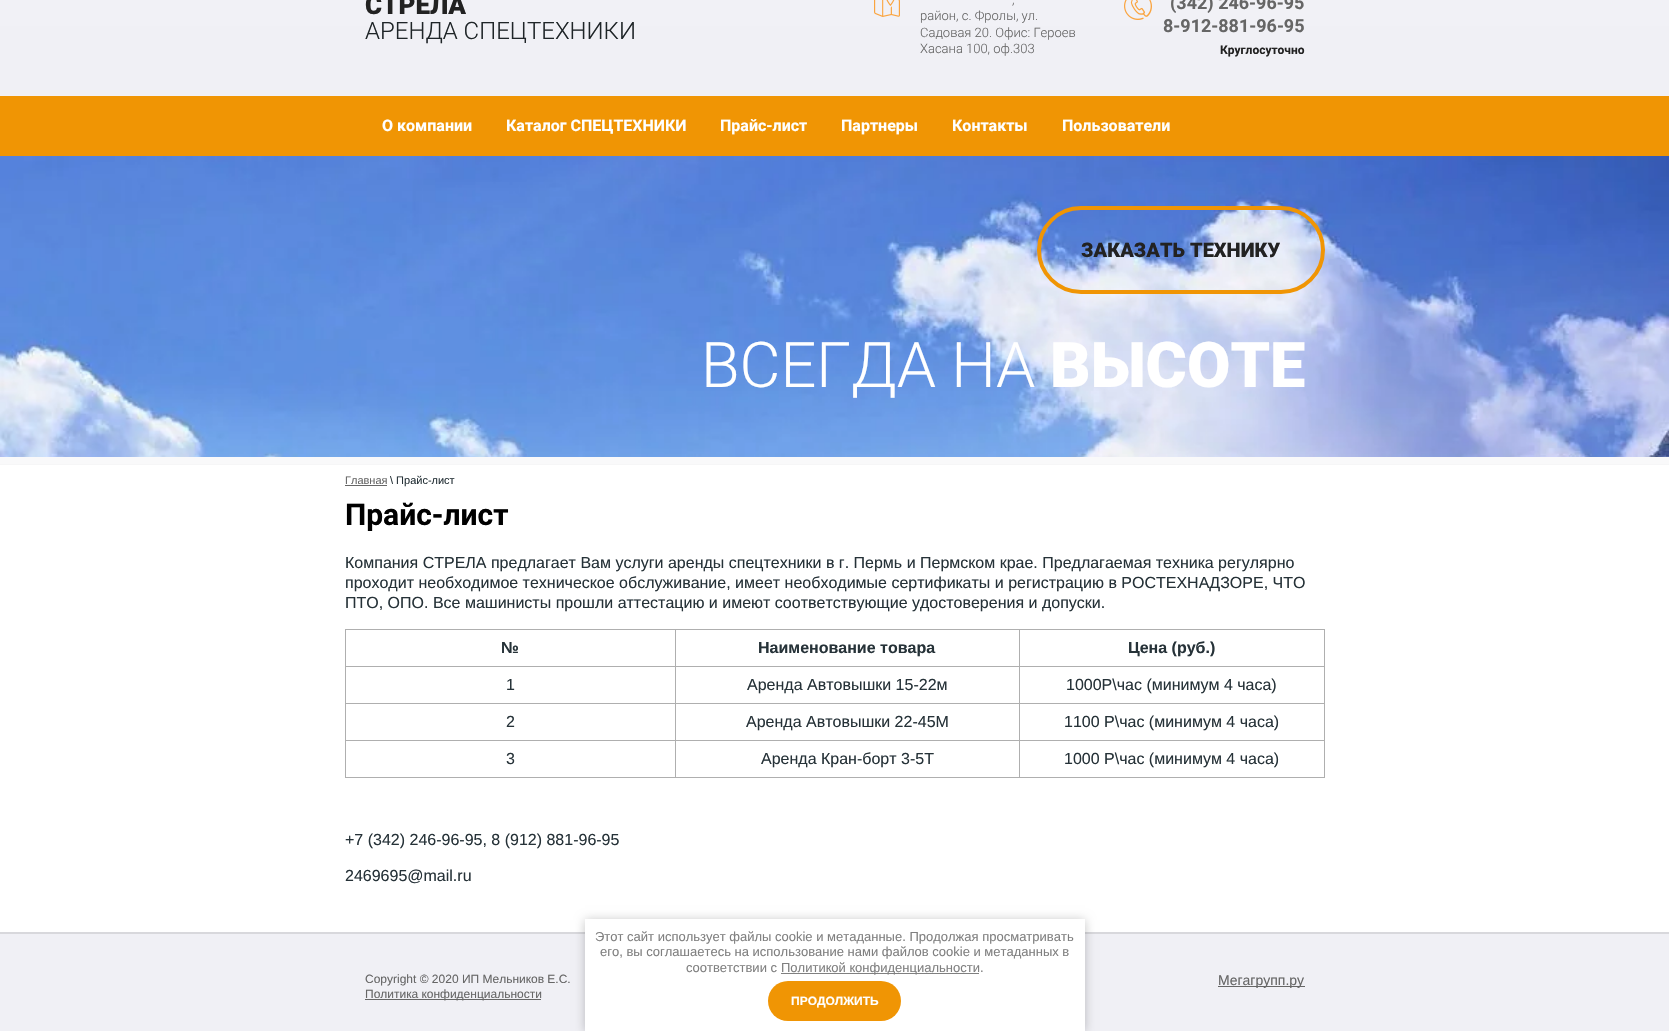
void draw(SkCanvas* canvas) {
    SkPaint paint;
    paint.setAntiAlias(true);
    canvas->clear(0xFFFFFFFF);
    {
        const SkColor colors[] = {0xFFF0F0F5, 0xFFF1F1F6};
        const float stops[] = {0, 1};
        const SkPoint ends[] = {{835, 95}, {835, -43}};
        paint.setShader(SkGradientShader::MakeLinear(ends, colors, stops, 2, SkTileMode::kClamp));
        paint.setAlpha(255);
    }
    canvas->drawRect(SkRect::MakeXYWH(0, 0, 1669, 95), paint);
    {
        const SkColor colors[] = {0xFFF0F0F5, 0xFFF1F1F6};
        const float stops[] = {0, 1};
        const SkPoint ends[] = {{835, 233}, {835, 95}};
        paint.setShader(SkGradientShader::MakeLinear(ends, colors, stops, 2, SkTileMode::kClamp));
        paint.setAlpha(255);
    }
    canvas->drawRect(SkRect::MakeXYWH(0, 95, 1669, 1), paint);
    SkFont font1(fontMgr->matchFamilyStyle("Roboto", SkFontStyle(900, SkFontStyle::kNormal_Width, SkFontStyle::kUpright_Slant)), 26);
    font1.setSubpixel(true);
    paint.setShader(nullptr);
    paint.setColor(0xFF222222);
    canvas->drawString("СТРЕЛА", 365, 14, font1, paint);
    SkFont font2(fontMgr->matchFamilyStyle("Roboto", SkFontStyle(300, SkFontStyle::kNormal_Width, SkFontStyle::kUpright_Slant)), 24);
    font2.setSubpixel(true);
    paint.setColor(0xFF1F2528);
    canvas->drawString("АРЕНДА СПЕЦТЕХНИКИ", 365, 39, font2, paint);
    canvas->drawImageRect(SkImages::DeferredFromEncodedData(SkData::MakeFromFileName("img1.png")), SkRect::MakeXYWH(874, 0, 26, 17), SkSamplingOptions());
    SkFont font3(fontMgr->matchFamilyStyle("Roboto", SkFontStyle(300, SkFontStyle::kNormal_Width, SkFontStyle::kUpright_Slant)), 13);
    font3.setSubpixel(true);
    paint.setColor(0xFF666666);
    canvas->drawString(",", 1012, 4, font3, paint);
    canvas->drawString("район, с. Фролы, ул.", 920, 20, font3, paint);
    canvas->drawString("Садовая 20. Офис: Героев", 920, 37, font3, paint);
    canvas->drawString("Хасана 100, оф.303", 920, 53, font3, paint);
    canvas->drawImageRect(SkImages::DeferredFromEncodedData(SkData::MakeFromFileName("img2.png")), SkRect::MakeXYWH(1124, 0, 28, 20), SkSamplingOptions());
    SkFont font4(fontMgr->matchFamilyStyle("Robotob", SkFontStyle::Bold()), 18);
    font4.setSubpixel(true);
    canvas->drawString("(342) 246-96-95", 1170, 9, font4, paint);
    canvas->drawString("8-912-881-96-95", 1163, 32, font4, paint);
    SkFont font5(fontMgr->matchFamilyStyle("Robotob", SkFontStyle::Bold()), 12);
    font5.setSubpixel(true);
    paint.setColor(0xFF222222);
    canvas->drawString("Круглосуточно", 1220, 54, font5, paint);
    paint.setColor(0xFFF09504);
    canvas->drawRect(SkRect::MakeXYWH(0, 96, 1669, 60), paint);
    SkFont font6(fontMgr->matchFamilyStyle("Robotob", SkFontStyle::Bold()), 16);
    font6.setSubpixel(true);
    paint.setColor(0xFFFFFFFF);
    canvas->drawString("О компании", 382, 131, font6, paint);
    canvas->drawString("Каталог СПЕЦТЕХНИКИ", 506, 131, font6, paint);
    canvas->drawString("Прайс-лист", 720, 131, font6, paint);
    canvas->drawString("Партнеры", 841, 131, font6, paint);
    canvas->drawString("Контакты", 952, 131, font6, paint);
    canvas->drawString("Пользователи", 1062, 131, font6, paint);
    paint.setColor(0xFFF9F9FA);
    canvas->drawRect(SkRect::MakeXYWH(0, 457, 1669, 7), paint);
    paint.setColor(0xFFF6F6F7);
    canvas->drawRect(SkRect::MakeXYWH(0, 464, 1669, 1), paint);
    canvas->drawImageRect(SkImages::DeferredFromEncodedData(SkData::MakeFromFileName("img3.png")), SkRect::MakeXYWH(0, 156, 1669, 301), SkSamplingOptions());
    paint.setStyle(SkPaint::kStroke_Style);
    paint.setStrokeWidth(4);
    paint.setColor(0xFFF09504);
    canvas->drawRoundRect(SkRect::MakeXYWH(1039, 208, 284, 84), 42, 42, paint);
    SkFont font7(fontMgr->matchFamilyStyle("Roboto", SkFontStyle(900, SkFontStyle::kNormal_Width, SkFontStyle::kUpright_Slant)), 20);
    font7.setSubpixel(true);
    paint.setStyle(SkPaint::kFill_Style);
    paint.setColor(0xFF222222);
    canvas->drawString("ЗАКАЗАТЬ ТЕХНИКУ", 1081, 257, font7, paint);
    SkFont font8(fontMgr->matchFamilyStyle("Roboto", SkFontStyle(300, SkFontStyle::kNormal_Width, SkFontStyle::kUpright_Slant)), 63);
    font8.setSubpixel(true);
    paint.setColor(0xFFFFFFFF);
    canvas->drawString("ВСЕГДА НА", 701, 387, font8, paint);
    SkFont font9(fontMgr->matchFamilyStyle("Roboto", SkFontStyle(900, SkFontStyle::kNormal_Width, SkFontStyle::kUpright_Slant)), 63);
    font9.setSubpixel(true);
    canvas->drawString("ВЫСОТЕ", 1050, 387, font9, paint);
    SkFont font10(fontMgr->matchFamilyStyle("Liberation Sans", SkFontStyle::Normal()), 11);
    font10.setSubpixel(true);
    paint.setColor(0xFF666666);
    canvas->drawString("Главная", 345, 484, font10, paint);
    canvas->drawRect(SkRect::MakeXYWH(345, 485, 42, 1), paint);
    paint.setColor(0xFF263238);
    canvas->drawString("\\ Прайс-лист", 390, 484, font10, paint);
    SkFont font11(fontMgr->matchFamilyStyle("Robotob", SkFontStyle::Bold()), 30);
    font11.setSubpixel(true);
    paint.setColor(0xFF000000);
    canvas->drawString("Прайс-лист", 345, 525, font11, paint);
    SkFont font12(fontMgr->matchFamilyStyle("Liberation Sans", SkFontStyle::Normal()), 16);
    font12.setSubpixel(true);
    paint.setColor(0xFF263238);
    canvas->drawString("Компания СТРЕЛА предлагает Вам услуги аренды спецтехники в г. Пермь и Пермском крае. Предлагаемая техника регулярно", 345, 568, font12, paint);
    canvas->drawString("проходит необходимое техническое обслуживание, имеет необходимые сертификаты и регистрацию в РОСТЕХНАДЗОРЕ, ЧТО", 345, 588, font12, paint);
    canvas->drawString("ПТО, ОПО. Все машинисты прошли аттестацию и имеют соответствующие удостоверения и допуски.", 345, 608, font12, paint);
    paint.setColor(0xFFAFAFAF);
    canvas->drawRect(SkRect::MakeXYWH(345, 629, 980, 1), paint);
    canvas->drawRect(SkRect::MakeXYWH(1324, 629, 1, 149), paint);
    canvas->drawRect(SkRect::MakeXYWH(345, 777, 980, 1), paint);
    canvas->drawRect(SkRect::MakeXYWH(345, 629, 1, 149), paint);
    SkFont font13(fontMgr->matchFamilyStyle("Liberation Sans", SkFontStyle::Bold()), 16);
    font13.setSubpixel(true);
    paint.setColor(0xFF263238);
    canvas->drawString("№", 501, 653, font13, paint);
    paint.setColor(0xFFAFAFAF);
    canvas->drawRect(SkRect::MakeXYWH(1019, 666, 306, 1), paint);
    canvas->drawRect(SkRect::MakeXYWH(1019, 703, 306, 1), paint);
    canvas->drawRect(SkRect::MakeXYWH(1019, 740, 306, 1), paint);
    canvas->drawRect(SkRect::MakeXYWH(1019, 740, 1, 38), paint);
    canvas->drawRect(SkRect::MakeXYWH(675, 740, 345, 1), paint);
    canvas->drawRect(SkRect::MakeXYWH(1019, 703, 1, 38), paint);
    canvas->drawRect(SkRect::MakeXYWH(675, 703, 345, 1), paint);
    canvas->drawRect(SkRect::MakeXYWH(1019, 666, 1, 38), paint);
    canvas->drawRect(SkRect::MakeXYWH(675, 666, 345, 1), paint);
    canvas->drawRect(SkRect::MakeXYWH(675, 740, 1, 38), paint);
    canvas->drawRect(SkRect::MakeXYWH(345, 740, 331, 1), paint);
    canvas->drawRect(SkRect::MakeXYWH(675, 703, 1, 38), paint);
    canvas->drawRect(SkRect::MakeXYWH(345, 703, 331, 1), paint);
    canvas->drawRect(SkRect::MakeXYWH(675, 666, 1, 38), paint);
    canvas->drawRect(SkRect::MakeXYWH(345, 666, 331, 1), paint);
    canvas->drawRect(SkRect::MakeXYWH(675, 629, 1, 38), paint);
    paint.setColor(0xFF263238);
    canvas->drawString("Наименование товара", 758, 653, font13, paint);
    paint.setColor(0xFFAFAFAF);
    canvas->drawRect(SkRect::MakeXYWH(1019, 629, 1, 38), paint);
    paint.setColor(0xFF263238);
    canvas->drawString("Цена (руб.)", 1128, 653, font13, paint);
    canvas->drawString("1", 506, 690, font12, paint);
    canvas->drawString("Аренда Автовышки 15-22м", 747, 690, font12, paint);
    canvas->drawString("1000Р\\час (минимум 4 часа)", 1066, 690, font12, paint);
    canvas->drawString("2", 506, 727, font12, paint);
    canvas->drawString("Аренда Автовышки 22-45М", 746, 727, font12, paint);
    canvas->drawString("1100 Р\\час (минимум 4 часа)", 1064, 727, font12, paint);
    canvas->drawString("3", 506, 764, font12, paint);
    canvas->drawString("Аренда Кран-борт 3-5Т", 761, 764, font12, paint);
    canvas->drawString("1000 Р\\час (минимум 4 часа)", 1064, 764, font12, paint);
    canvas->drawString("+7 (342) 246-96-95, 8 (912) 881-96-95", 345, 845, font12, paint);
    canvas->drawString("2469695@mail.ru", 345, 881, font12, paint);
    paint.setColor(0xFFF0F0F5);
    canvas->drawRect(SkRect::MakeXYWH(0, 934, 1669, 97), paint);
    paint.setColor(0xFFD8D8DC);
    canvas->drawRect(SkRect::MakeXYWH(0, 932, 1669, 2), paint);
    SkFont font14(fontMgr->matchFamilyStyle("Liberation Sans", SkFontStyle::Normal()), 12);
    font14.setSubpixel(true);
    paint.setColor(0xFF666666);
    canvas->drawString("Copyright © 2020 ИП Мельников Е.С.", 365, 983, font14, paint);
    canvas->drawRect(SkRect::MakeXYWH(365, 999, 176, 1), paint);
    canvas->drawString("Политика конфиденциальности", 365, 998, font14, paint);
    canvas->drawRect(SkRect::MakeXYWH(1218, 986, 87, 1), paint);
    SkFont font15(fontMgr->matchFamilyStyle("Liberation Sans", SkFontStyle::Normal()), 14);
    font15.setSubpixel(true);
    canvas->drawString("Мегагрупп.ру", 1218, 985, font15, paint);
    paint.setColor(0x3B000000);
    paint.setMaskFilter(SkMaskFilter::MakeBlur(kNormal_SkBlurStyle, 5));
    canvas->drawRect(SkRect::MakeXYWH(585, 920, 500, 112), paint);
    paint.setMaskFilter(nullptr);
    paint.setColor(0xFFFFFFFF);
    canvas->drawRect(SkRect::MakeXYWH(585, 919, 500, 112), paint);
    SkFont font16(fontMgr->matchFamilyStyle("Liberation Sans", SkFontStyle::Normal()), 13);
    font16.setSubpixel(true);
    paint.setColor(0xFF808080);
    canvas->drawString("Этот сайт использует файлы cookie и метаданные. Продолжая просматривать", 595, 941, font16, paint);
    canvas->drawString("его, вы соглашаетесь на использование нами файлов cookie и метаданных в", 600, 956, font16, paint);
    canvas->drawString("соответствии с", 686, 972, font16, paint);
    canvas->drawRect(SkRect::MakeXYWH(781, 973, 198, 1), paint);
    canvas->drawString("Политикой конфиденциальности.", 781, 972, font16, paint);
    paint.setColor(0xFFF09504);
    canvas->drawRoundRect(SkRect::MakeXYWH(768, 981, 133, 40), 20, 20, paint);
    SkFont font17(fontMgr->matchFamilyStyle("Liberation Sans", SkFontStyle::Bold()), 12);
    font17.setSubpixel(true);
    paint.setColor(0xFFFFFFFF);
    canvas->drawString("ПРОДОЛЖИТЬ", 791, 1005, font17, paint);
}
